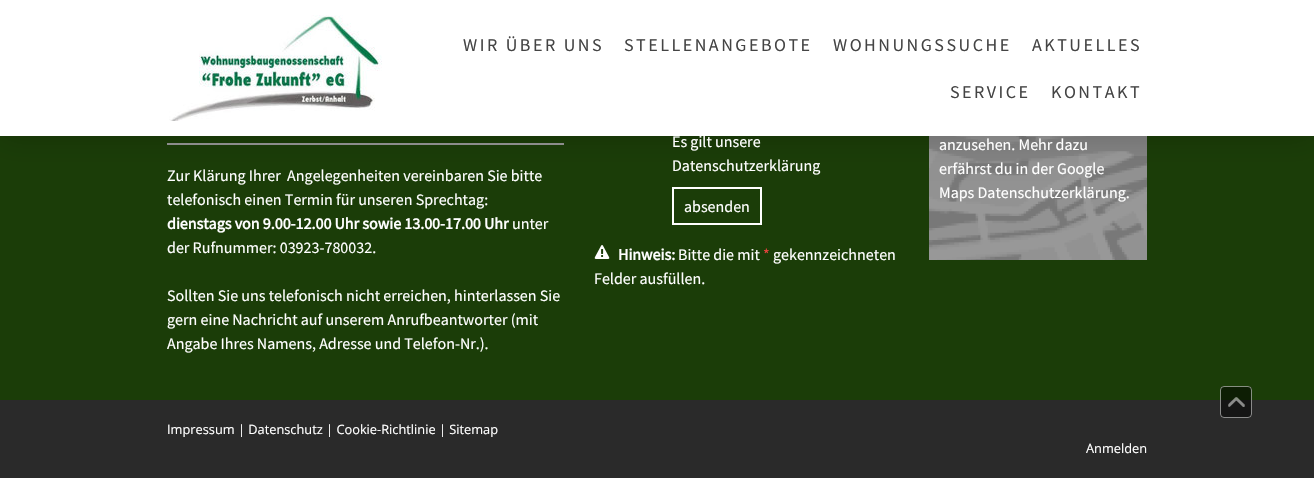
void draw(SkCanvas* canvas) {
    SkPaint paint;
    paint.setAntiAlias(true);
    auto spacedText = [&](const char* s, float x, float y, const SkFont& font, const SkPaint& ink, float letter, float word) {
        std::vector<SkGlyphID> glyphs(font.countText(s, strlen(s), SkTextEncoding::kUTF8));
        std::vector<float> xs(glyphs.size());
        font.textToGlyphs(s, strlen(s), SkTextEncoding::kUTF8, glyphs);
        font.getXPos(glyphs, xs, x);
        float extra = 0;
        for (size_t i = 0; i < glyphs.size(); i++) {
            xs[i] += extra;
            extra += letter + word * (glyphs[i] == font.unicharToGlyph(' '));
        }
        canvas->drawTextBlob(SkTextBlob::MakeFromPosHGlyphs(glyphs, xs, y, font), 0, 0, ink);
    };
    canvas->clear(0xFF1B3D08);
    paint.setColor(0xFF969696);
    canvas->drawRect(SkRect::MakeXYWH(167, 143, 397, 2), paint);
    canvas->drawImageRect(SkImages::DeferredFromEncodedData(SkData::MakeFromFileName("img3.png")), SkRect::MakeXYWH(929, 136, 218, 124), SkSamplingOptions());
    paint.setColor(0x33000000);
    paint.setMaskFilter(SkMaskFilter::MakeBlur(kNormal_SkBlurStyle, 15));
    canvas->drawRect(SkRect::MakeXYWH(0, 0, 1314, 136), paint);
    paint.setMaskFilter(nullptr);
    paint.setColor(0xFFFFFFFF);
    canvas->drawRect(SkRect::MakeXYWH(0, 0, 1314, 136), paint);
    canvas->drawImageRect(SkImages::DeferredFromEncodedData(SkData::MakeFromFileName("img1.png")), SkRect::MakeXYWH(169, 15, 213, 106), SkSamplingOptions());
    SkFont font1(fontMgr->matchFamilyStyle("Source Sans Pro", SkFontStyle::Normal()), 18);
    font1.setSubpixel(true);
    paint.setColor(0xFF444444);
    spacedText("WIR ÜBER UNS", 463, 51, font1, paint, 2.5f, 0);
    spacedText("STELLENANGEBOTE", 624, 51, font1, paint, 2.5f, 0);
    spacedText("WOHNUNGSSUCHE", 833, 51, font1, paint, 2.5f, 0);
    spacedText("AKTUELLES", 1032, 51, font1, paint, 2.5f, 0);
    spacedText("SERVICE", 950, 98, font1, paint, 2.5f, 0);
    spacedText("KONTAKT", 1051, 98, font1, paint, 2.5f, 0);
    SkFont font2(fontMgr->matchFamilyStyle("Source Sans Pro", SkFontStyle::Normal()), 16);
    font2.setSubpixel(true);
    paint.setColor(0xFFFFFFFF);
    canvas->drawString("Zur Klärung Ihrer  Angelegenheiten vereinbaren Sie bitte", 167, 181, font2, paint);
    canvas->drawString("telefonisch einen Termin für unseren Sprechtag:", 167, 205, font2, paint);
    SkFont font3(fontMgr->matchFamilyStyle("Source Sans Pro", SkFontStyle::Bold()), 16);
    font3.setSubpixel(true);
    canvas->drawString("dienstags von 9.00-12.00 Uhr sowie 13.00-17.00 Uhr", 167, 229, font3, paint);
    canvas->drawString("unter", 512, 229, font2, paint);
    canvas->drawString("der Rufnummer: 03923-780032.", 167, 253, font2, paint);
    canvas->drawString("Sollten Sie uns telefonisch nicht erreichen, hinterlassen Sie", 167, 301, font2, paint);
    canvas->drawString("gern eine Nachricht auf unserem Anrufbeantworter (mit", 167, 325, font2, paint);
    canvas->drawString("Angabe Ihres Namens, Adresse und Telefon-Nr.).", 167, 349, font2, paint);
    canvas->drawString("Es gilt unsere", 672, 147, font2, paint);
    canvas->drawString("Datenschutzerklärung", 672, 171, font2, paint);
    paint.setStyle(SkPaint::kStroke_Style);
    paint.setStrokeWidth(2);
    canvas->drawRect(SkRect::MakeXYWH(673, 188, 88, 36), paint);
    paint.setStyle(SkPaint::kFill_Style);
    canvas->drawString("absenden", 684, 212, font2, paint);
    canvas->drawImageRect(SkImages::DeferredFromEncodedData(SkData::MakeFromFileName("img2.png")), SkRect::MakeXYWH(594, 245, 16, 14), SkSamplingOptions());
    canvas->drawString("Hinweis:", 618, 260, font3, paint);
    canvas->drawString("Bitte die mit", 678, 260, font2, paint);
    paint.setColor(0xFFEB433E);
    canvas->drawString("*", 763, 260, font2, paint);
    paint.setColor(0xFFFFFFFF);
    canvas->drawString("gekennzeichneten", 773, 260, font2, paint);
    canvas->drawString("Felder ausfüllen.", 594, 284, font2, paint);
    canvas->drawString("anzusehen. Mehr dazu", 939, 150, font2, paint);
    canvas->drawString("erfährst du in der Google", 939, 174, font2, paint);
    canvas->drawString("Maps Datenschutzerklärung.", 939, 198, font2, paint);
    paint.setColor(0xFF2A2A2A);
    canvas->drawRect(SkRect::MakeXYWH(0, 400, 1314, 78), paint);
    SkFont font4(fontMgr->matchFamilyStyle("Open Sans", SkFontStyle::Normal()), 12.8f);
    font4.setSubpixel(true);
    paint.setColor(0xFFFFFFFF);
    canvas->drawString("Impressum | Datenschutz | Cookie-Richtlinie | Sitemap", 167, 434, font4, paint);
    canvas->drawString("Anmelden", 1086, 453, font4, paint);
    paint.setColor(0x80000000);
    canvas->drawRoundRect(SkRect::MakeXYWH(1220, 386, 32, 32), 4, 4, paint);
    paint.setStyle(SkPaint::kStroke_Style);
    paint.setStrokeWidth(1);
    paint.setColor(0x80FFFFFF);
    canvas->drawRoundRect(SkRect::MakeXYWH(1220.5f, 386.5f, 31, 31), 3.5f, 3.5f, paint);
    canvas->drawImageRect(SkImages::DeferredFromEncodedData(SkData::MakeFromFileName("img4.png")), SkRect::MakeXYWH(1228, 397, 17, 10), SkSamplingOptions());
}
